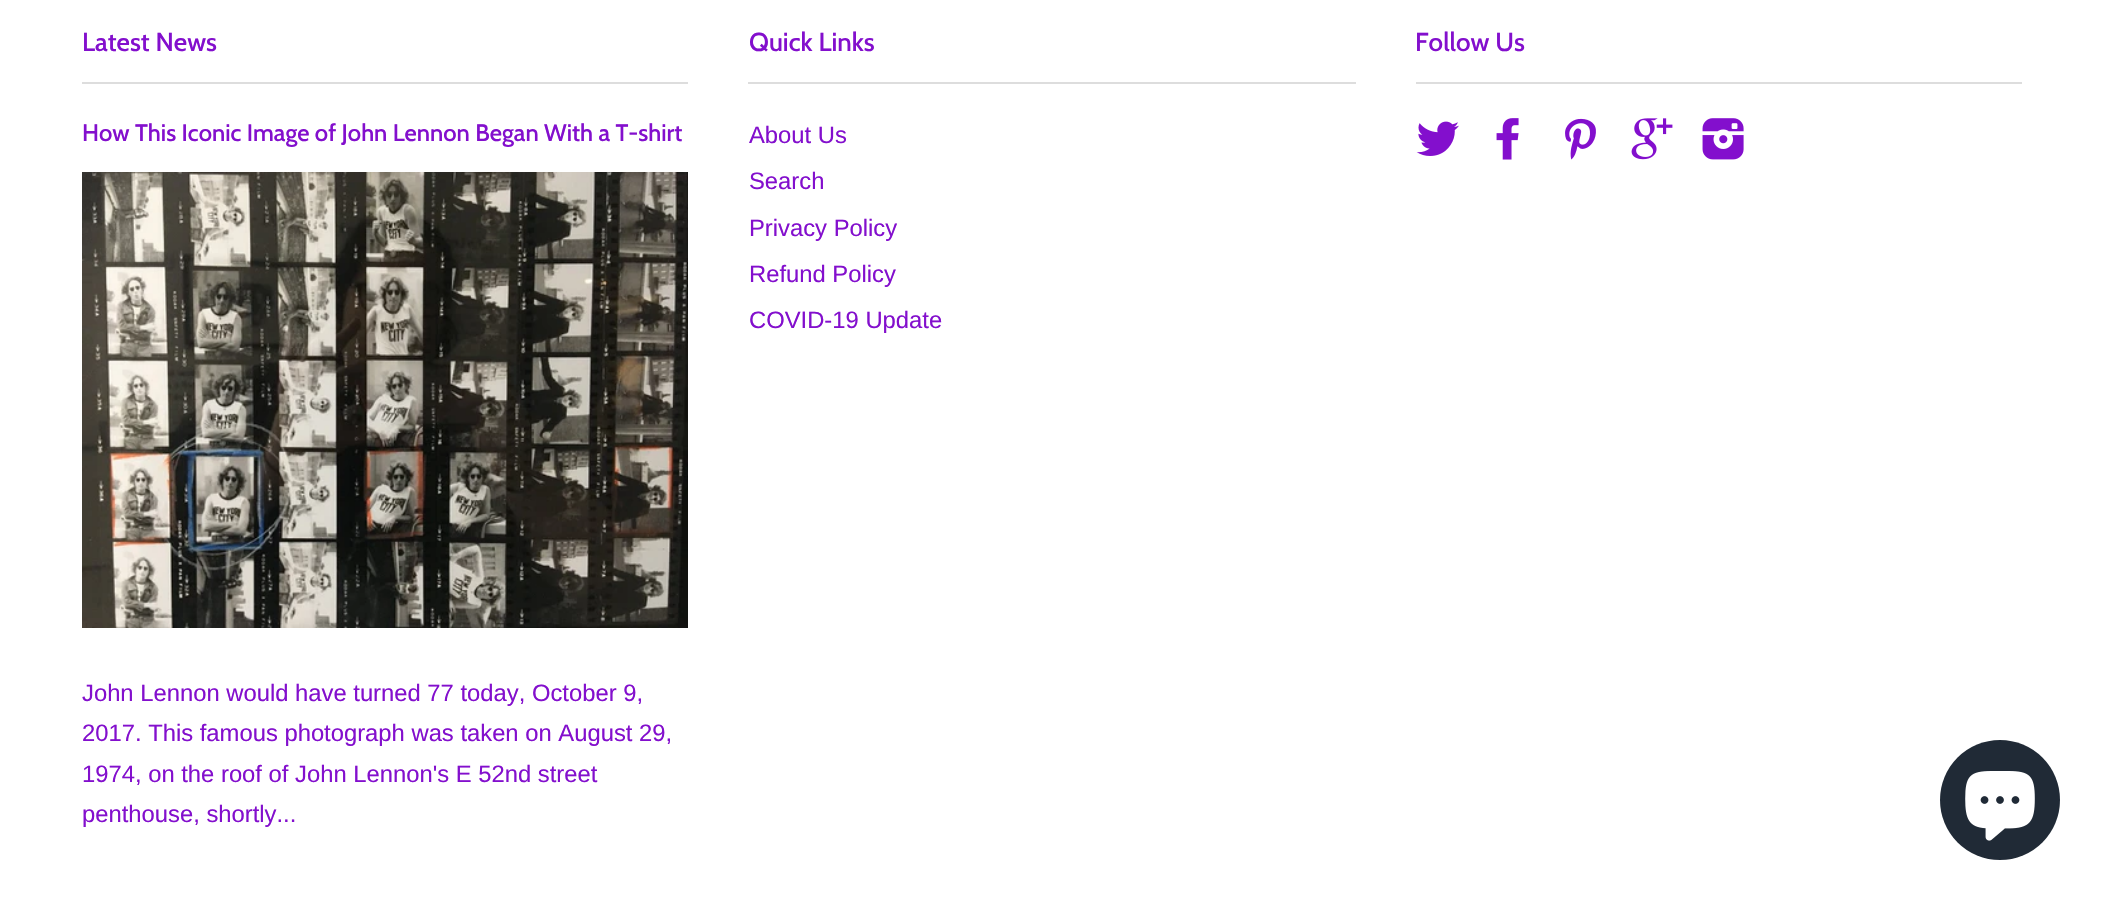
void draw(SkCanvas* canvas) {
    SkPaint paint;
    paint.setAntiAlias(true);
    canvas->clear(0xFFFFFFFF);
    paint.setColor(0xFFDDDDDD);
    canvas->drawRect(SkRect::MakeXYWH(82, 82, 606, 2), paint);
    SkFont font1(fontMgr->matchFamilyStyle("Cabin", SkFontStyle(500, SkFontStyle::kNormal_Width, SkFontStyle::kUpright_Slant)), 26);
    font1.setSubpixel(true);
    paint.setColor(0xFF830FCD);
    canvas->drawString("Latest News", 82, 51, font1, paint);
    SkFont font2(fontMgr->matchFamilyStyle("Cabin", SkFontStyle(500, SkFontStyle::kNormal_Width, SkFontStyle::kUpright_Slant)), 23.8f);
    font2.setSubpixel(true);
    canvas->drawString("How This Iconic Image of John Lennon Began With a T-shirt", 82, 141, font2, paint);
    canvas->drawImageRect(SkImages::DeferredFromEncodedData(SkData::MakeFromFileName("img1.png")), SkRect::MakeXYWH(82, 172, 606, 456), SkSamplingOptions());
    SkFont font3(fontMgr->matchFamilyStyle("Liberation Sans", SkFontStyle::Normal()), 23.8f);
    font3.setSubpixel(true);
    canvas->drawString("John Lennon would have turned 77 today, October 9,", 82, 701, font3, paint);
    canvas->drawString("2017. This famous photograph was taken on August 29,", 82, 741, font3, paint);
    canvas->drawString("1974, on the roof of John Lennon's E 52nd street", 82, 782, font3, paint);
    canvas->drawString("penthouse, shortly...", 82, 822, font3, paint);
    paint.setColor(0xFFDDDDDD);
    canvas->drawRect(SkRect::MakeXYWH(748, 82, 608, 2), paint);
    paint.setColor(0xFF830FCD);
    canvas->drawString("Quick Links", 749, 51, font1, paint);
    canvas->drawString("About Us", 749, 143, font3, paint);
    canvas->drawString("Search", 749, 189, font3, paint);
    canvas->drawString("Privacy Policy", 749, 236, font3, paint);
    canvas->drawString("Refund Policy", 749, 282, font3, paint);
    canvas->drawString("COVID-19 Update", 749, 328, font3, paint);
    paint.setColor(0xFFDDDDDD);
    canvas->drawRect(SkRect::MakeXYWH(1416, 82, 606, 2), paint);
    paint.setColor(0xFF830FCD);
    canvas->drawString("Follow Us", 1415, 51, font1, paint);
    canvas->drawImageRect(SkImages::DeferredFromEncodedData(SkData::MakeFromFileName("img2.png")), SkRect::MakeXYWH(1416, 121, 43, 35), SkSamplingOptions());
    canvas->drawImageRect(SkImages::DeferredFromEncodedData(SkData::MakeFromFileName("img3.png")), SkRect::MakeXYWH(1496, 118, 23, 42), SkSamplingOptions());
    canvas->drawImageRect(SkImages::DeferredFromEncodedData(SkData::MakeFromFileName("img4.png")), SkRect::MakeXYWH(1565, 118, 31, 42), SkSamplingOptions());
    canvas->drawImageRect(SkImages::DeferredFromEncodedData(SkData::MakeFromFileName("img5.png")), SkRect::MakeXYWH(1631, 118, 42, 42), SkSamplingOptions());
    canvas->drawImageRect(SkImages::DeferredFromEncodedData(SkData::MakeFromFileName("img6.png")), SkRect::MakeXYWH(1702, 118, 42, 42), SkSamplingOptions());
    paint.setColor(0xFF202A36);
    canvas->drawCircle(2000, 800, 60, paint);
    canvas->drawImageRect(SkImages::DeferredFromEncodedData(SkData::MakeFromFileName("img7.png")), SkRect::MakeXYWH(1965, 771, 70, 70), SkSamplingOptions());
}
